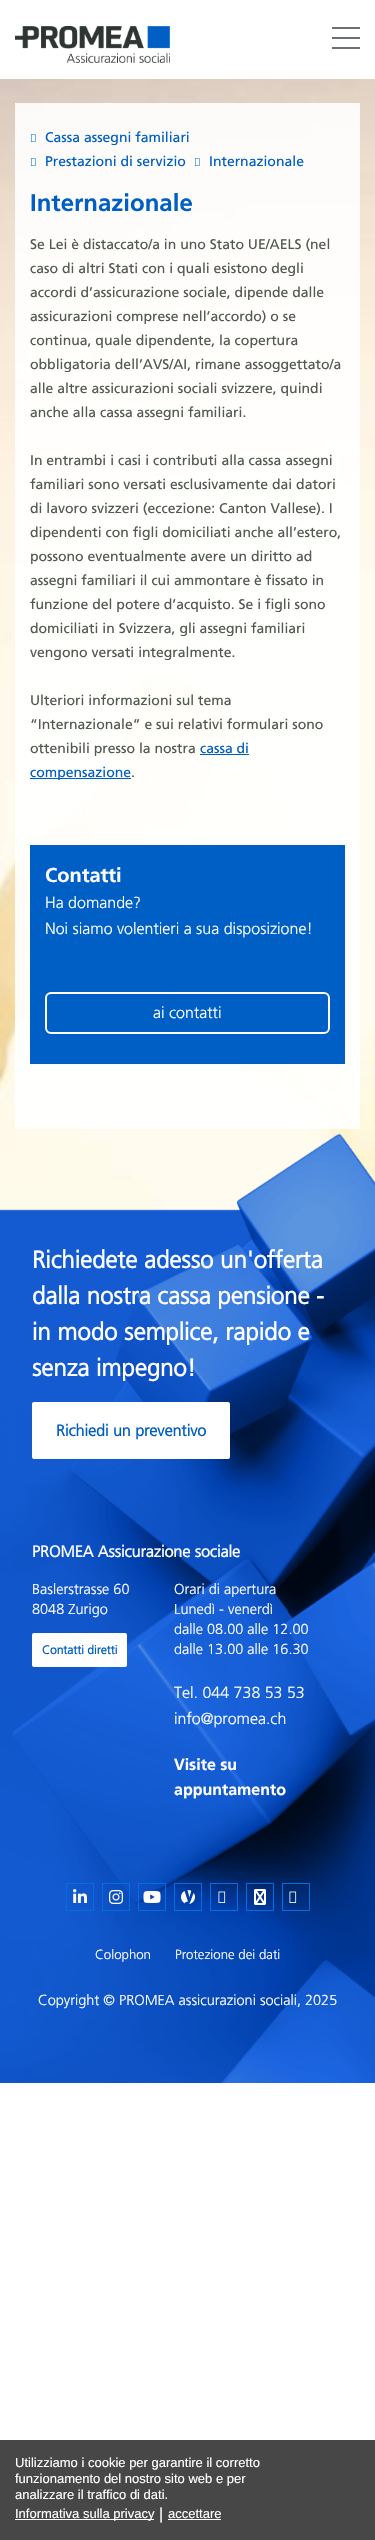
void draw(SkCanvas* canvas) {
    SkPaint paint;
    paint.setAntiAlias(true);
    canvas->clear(0xFFFFFFFF);
    canvas->drawImageRect(SkImages::DeferredFromEncodedData(SkData::MakeFromFileName("img1.png")), SkRect::MakeXYWH(15, 26, 155, 37), SkSamplingOptions());
    paint.setColor(0xFF6B7077);
    canvas->drawRect(SkRect::MakeXYWH(332, 37, 28, 2), paint);
    canvas->drawRect(SkRect::MakeXYWH(332, 27, 28, 2), paint);
    canvas->drawRect(SkRect::MakeXYWH(332, 47, 28, 2), paint);
    canvas->drawImageRect(SkImages::DeferredFromEncodedData(SkData::MakeFromFileName("img2.png")), SkRect::MakeXYWH(0, 79, 375, 1132), SkSamplingOptions());
    paint.setColor(0xE6FFFFFF);
    canvas->drawRect(SkRect::MakeXYWH(15, 103, 345, 712), paint);
    canvas->drawImageRect(SkImages::DeferredFromEncodedData(SkData::MakeFromFileName("img3.png")), SkRect::MakeXYWH(31, 134, 5, 8), SkSamplingOptions());
    SkFont font1(fontMgr->matchFamilyStyle("Frutiger", SkFontStyle::Normal()), 14);
    font1.setSubpixel(true);
    paint.setColor(0xFF005FC5);
    canvas->drawString("Cassa assegni familiari", 45, 142, font1, paint);
    canvas->drawImageRect(SkImages::DeferredFromEncodedData(SkData::MakeFromFileName("img4.png")), SkRect::MakeXYWH(31, 158, 5, 8), SkSamplingOptions());
    canvas->drawString("Prestazioni di servizio", 45, 166, font1, paint);
    canvas->drawImageRect(SkImages::DeferredFromEncodedData(SkData::MakeFromFileName("img5.png")), SkRect::MakeXYWH(195, 158, 5, 8), SkSamplingOptions());
    canvas->drawString("Internazionale", 209, 166, font1, paint);
    SkFont font2(fontMgr->matchFamilyStyle("Frutiger", SkFontStyle::Bold()), 24);
    font2.setSubpixel(true);
    canvas->drawString("Internazionale", 30, 211, font2, paint);
    paint.setColor(0xFF535A51);
    canvas->drawString("Se Lei è distaccato/a in uno Stato UE/AELS (nel", 30, 249, font1, paint);
    canvas->drawString("caso di altri Stati con i quali esistono degli", 30, 273, font1, paint);
    canvas->drawString("accordi d’assicurazione sociale, dipende dalle", 30, 297, font1, paint);
    canvas->drawString("assicurazioni comprese nell’accordo) o se", 30, 321, font1, paint);
    canvas->drawString("continua, quale dipendente, la copertura", 30, 345, font1, paint);
    canvas->drawString("obbligatoria dell’AVS/AI, rimane assoggettato/a", 30, 369, font1, paint);
    canvas->drawString("alle altre assicurazioni sociali svizzere, quindi", 30, 393, font1, paint);
    canvas->drawString("anche alla cassa assegni familiari.", 30, 417, font1, paint);
    canvas->drawString("In entrambi i casi i contributi alla cassa assegni", 30, 465, font1, paint);
    canvas->drawString("familiari sono versati esclusivamente dai datori", 30, 489, font1, paint);
    canvas->drawString("di lavoro svizzeri (eccezione: Canton Vallese). I", 30, 513, font1, paint);
    canvas->drawString("dipendenti con figli domiciliati anche all’estero,", 30, 537, font1, paint);
    canvas->drawString("possono eventualmente avere un diritto ad", 30, 561, font1, paint);
    canvas->drawString("assegni familiari il cui ammontare è fissato in", 30, 585, font1, paint);
    canvas->drawString("funzione del potere d’acquisto. Se i figli sono", 30, 609, font1, paint);
    canvas->drawString("domiciliati in Svizzera, gli assegni familiari", 30, 633, font1, paint);
    canvas->drawString("vengono versati integralmente.", 30, 657, font1, paint);
    canvas->drawString("Ulteriori informazioni sul tema", 30, 705, font1, paint);
    canvas->drawString("“Internazionale” e sui relativi formulari sono", 30, 729, font1, paint);
    canvas->drawString("ottenibili presso la nostra", 30, 753, font1, paint);
    paint.setColor(0xFF005FC5);
    canvas->drawString("cassa di", 200, 753, font1, paint);
    canvas->drawRect(SkRect::MakeXYWH(200, 754, 49, 1), paint);
    canvas->drawRect(SkRect::MakeXYWH(30, 778, 101, 1), paint);
    canvas->drawString("compensazione", 30, 777, font1, paint);
    paint.setColor(0xFF535A51);
    canvas->drawString(".", 131, 777, font1, paint);
    paint.setColor(0xE6FFFFFF);
    canvas->drawRect(SkRect::MakeXYWH(15, 815, 345, 314), paint);
    paint.setColor(0xFF005FC5);
    canvas->drawRect(SkRect::MakeXYWH(30, 845, 315, 219), paint);
    SkFont font3(fontMgr->matchFamilyStyle("Frutiger", SkFontStyle::Bold()), 20);
    font3.setSubpixel(true);
    paint.setColor(0xFFFFFFFF);
    canvas->drawString("Contatti", 45, 882, font3, paint);
    SkFont font4(fontMgr->matchFamilyStyle("Frutiger", SkFontStyle(300, SkFontStyle::kNormal_Width, SkFontStyle::kUpright_Slant)), 16);
    font4.setSubpixel(true);
    canvas->drawString("Ha domande?", 45, 908, font4, paint);
    canvas->drawString("Noi siamo volentieri a sua disposizione!", 45, 934, font4, paint);
    paint.setStyle(SkPaint::kStroke_Style);
    paint.setStrokeWidth(2);
    canvas->drawRoundRect(SkRect::MakeXYWH(46, 993, 283, 40), 5, 5, paint);
    paint.setStyle(SkPaint::kFill_Style);
    canvas->drawString("ai contatti", 153, 1018, font4, paint);
    canvas->drawImageRect(SkImages::DeferredFromEncodedData(SkData::MakeFromFileName("img6.png")), SkRect::MakeXYWH(0, 1134, 375, 949), SkSamplingOptions());
    SkFont font5(fontMgr->matchFamilyStyle("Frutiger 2", SkFontStyle::Bold()), 24);
    font5.setSubpixel(true);
    canvas->drawString("Richiedete adesso un'offerta", 32, 1268, font5, paint);
    canvas->drawString("dalla nostra cassa pensione -", 32, 1304, font5, paint);
    canvas->drawString("in modo semplice, rapido e", 32, 1340, font5, paint);
    canvas->drawString("senza impegno!", 32, 1376, font5, paint);
    canvas->drawRoundRect(SkRect::MakeXYWH(32, 1402, 198, 57), 2, 2, paint);
    SkFont font6(fontMgr->matchFamilyStyle("Frutiger 2", SkFontStyle::Bold()), 16);
    font6.setSubpixel(true);
    paint.setColor(0xFF005FC5);
    canvas->drawString("Richiedi un preventivo", 56, 1436, font6, paint);
    paint.setColor(0xFFFFFFFF);
    canvas->drawString("PROMEA Assicurazione sociale", 32, 1557, font6, paint);
    SkFont font7(fontMgr->matchFamilyStyle("Frutiger", SkFontStyle(300, SkFontStyle::kNormal_Width, SkFontStyle::kUpright_Slant)), 14.5f);
    font7.setSubpixel(true);
    canvas->drawString("Baslerstrasse 60", 32, 1594, font7, paint);
    canvas->drawString("8048 Zurigo", 32, 1614, font7, paint);
    canvas->drawRoundRect(SkRect::MakeXYWH(32, 1633, 95, 34), 2, 2, paint);
    SkFont font8(fontMgr->matchFamilyStyle("Frutiger 2", SkFontStyle::Bold()), 12);
    font8.setSubpixel(true);
    paint.setColor(0xFF005FC5);
    canvas->drawString("Contatti diretti", 42, 1654, font8, paint);
    paint.setColor(0xFFFFFFFF);
    canvas->drawString("Orari di apertura", 174, 1594, font7, paint);
    canvas->drawString("Lunedì - venerdì", 174, 1614, font7, paint);
    canvas->drawString("dalle 08.00 alle 12.00", 174, 1634, font7, paint);
    canvas->drawString("dalle 13.00 alle 16.30", 174, 1654, font7, paint);
    canvas->drawString("Tel. 044 738 53 53", 174, 1698, font4, paint);
    canvas->drawString("info@promea.ch", 174, 1724, font4, paint);
    SkFont font9(fontMgr->matchFamilyStyle("Frutiger", SkFontStyle::Bold()), 16);
    font9.setSubpixel(true);
    canvas->drawString("Visite su", 174, 1770, font9, paint);
    canvas->drawString("appuntamento", 174, 1795, font9, paint);
    paint.setStyle(SkPaint::kStroke_Style);
    paint.setStrokeWidth(1);
    paint.setColor(0xFF026EE3);
    canvas->drawRect(SkRect::MakeXYWH(66.5f, 1883.5f, 27, 27), paint);
    canvas->drawImageRect(SkImages::DeferredFromEncodedData(SkData::MakeFromFileName("img7.png")), SkRect::MakeXYWH(73, 1889, 14, 14), SkSamplingOptions());
    canvas->drawRect(SkRect::MakeXYWH(102.5f, 1883.5f, 27, 27), paint);
    canvas->drawImageRect(SkImages::DeferredFromEncodedData(SkData::MakeFromFileName("img8.png")), SkRect::MakeXYWH(109, 1890, 14, 14), SkSamplingOptions());
    canvas->drawRect(SkRect::MakeXYWH(138.5f, 1883.5f, 27, 27), paint);
    canvas->drawImageRect(SkImages::DeferredFromEncodedData(SkData::MakeFromFileName("img9.png")), SkRect::MakeXYWH(143, 1891, 18, 12), SkSamplingOptions());
    canvas->drawRect(SkRect::MakeXYWH(174.5f, 1883.5f, 27, 27), paint);
    canvas->drawImageRect(SkImages::DeferredFromEncodedData(SkData::MakeFromFileName("img10.png")), SkRect::MakeXYWH(181, 1890, 14, 14), SkSamplingOptions());
    canvas->drawRect(SkRect::MakeXYWH(210.5f, 1883.5f, 27, 27), paint);
    canvas->drawImageRect(SkImages::DeferredFromEncodedData(SkData::MakeFromFileName("img11.png")), SkRect::MakeXYWH(218, 1891, 8, 12), SkSamplingOptions());
    canvas->drawRect(SkRect::MakeXYWH(246.5f, 1883.5f, 27, 27), paint);
    canvas->drawImageRect(SkImages::DeferredFromEncodedData(SkData::MakeFromFileName("img12.png")), SkRect::MakeXYWH(254, 1889, 12, 16), SkSamplingOptions());
    canvas->drawRect(SkRect::MakeXYWH(282.5f, 1883.5f, 27, 27), paint);
    canvas->drawImageRect(SkImages::DeferredFromEncodedData(SkData::MakeFromFileName("img13.png")), SkRect::MakeXYWH(289, 1891, 8, 12), SkSamplingOptions());
    SkFont font10(fontMgr->matchFamilyStyle("Frutiger", SkFontStyle(300, SkFontStyle::kNormal_Width, SkFontStyle::kUpright_Slant)), 13.25f);
    font10.setSubpixel(true);
    paint.setStyle(SkPaint::kFill_Style);
    paint.setColor(0xFFFFFFFF);
    canvas->drawString("Colophon", 95, 1959, font10, paint);
    canvas->drawString("Protezione dei dati", 175, 1959, font10, paint);
    canvas->drawString("Copyright © PROMEA assicurazioni sociali, 2025", 38, 2005, font7, paint);
    paint.setColor(0xFF474747);
    canvas->drawRect(SkRect::MakeXYWH(0, 2440, 375, 100), paint);
    SkFont font11(fontMgr->matchFamilyStyle("Liberation Sans", SkFontStyle::Normal()), 13);
    font11.setSubpixel(true);
    paint.setColor(0xFFFFFFFF);
    canvas->drawString("Utilizziamo i cookie per garantire il corretto", 15, 2467, font11, paint);
    canvas->drawString("funzionamento del nostro sito web e per", 15, 2483, font11, paint);
    canvas->drawString("analizzare il traffico di dati.", 15, 2499, font11, paint);
    canvas->drawRect(SkRect::MakeXYWH(15, 2519, 139, 1), paint);
    canvas->drawString("Informativa sulla privacy", 15, 2518, font11, paint);
    SkFont font12(fontMgr->matchFamilyStyle("Liberation Sans", SkFontStyle::Normal()), 16);
    font12.setSubpixel(true);
    canvas->drawString("|", 159, 2519, font12, paint);
    canvas->drawString("accettare", 168, 2518, font11, paint);
    canvas->drawRect(SkRect::MakeXYWH(168, 2519, 53, 1), paint);
}
